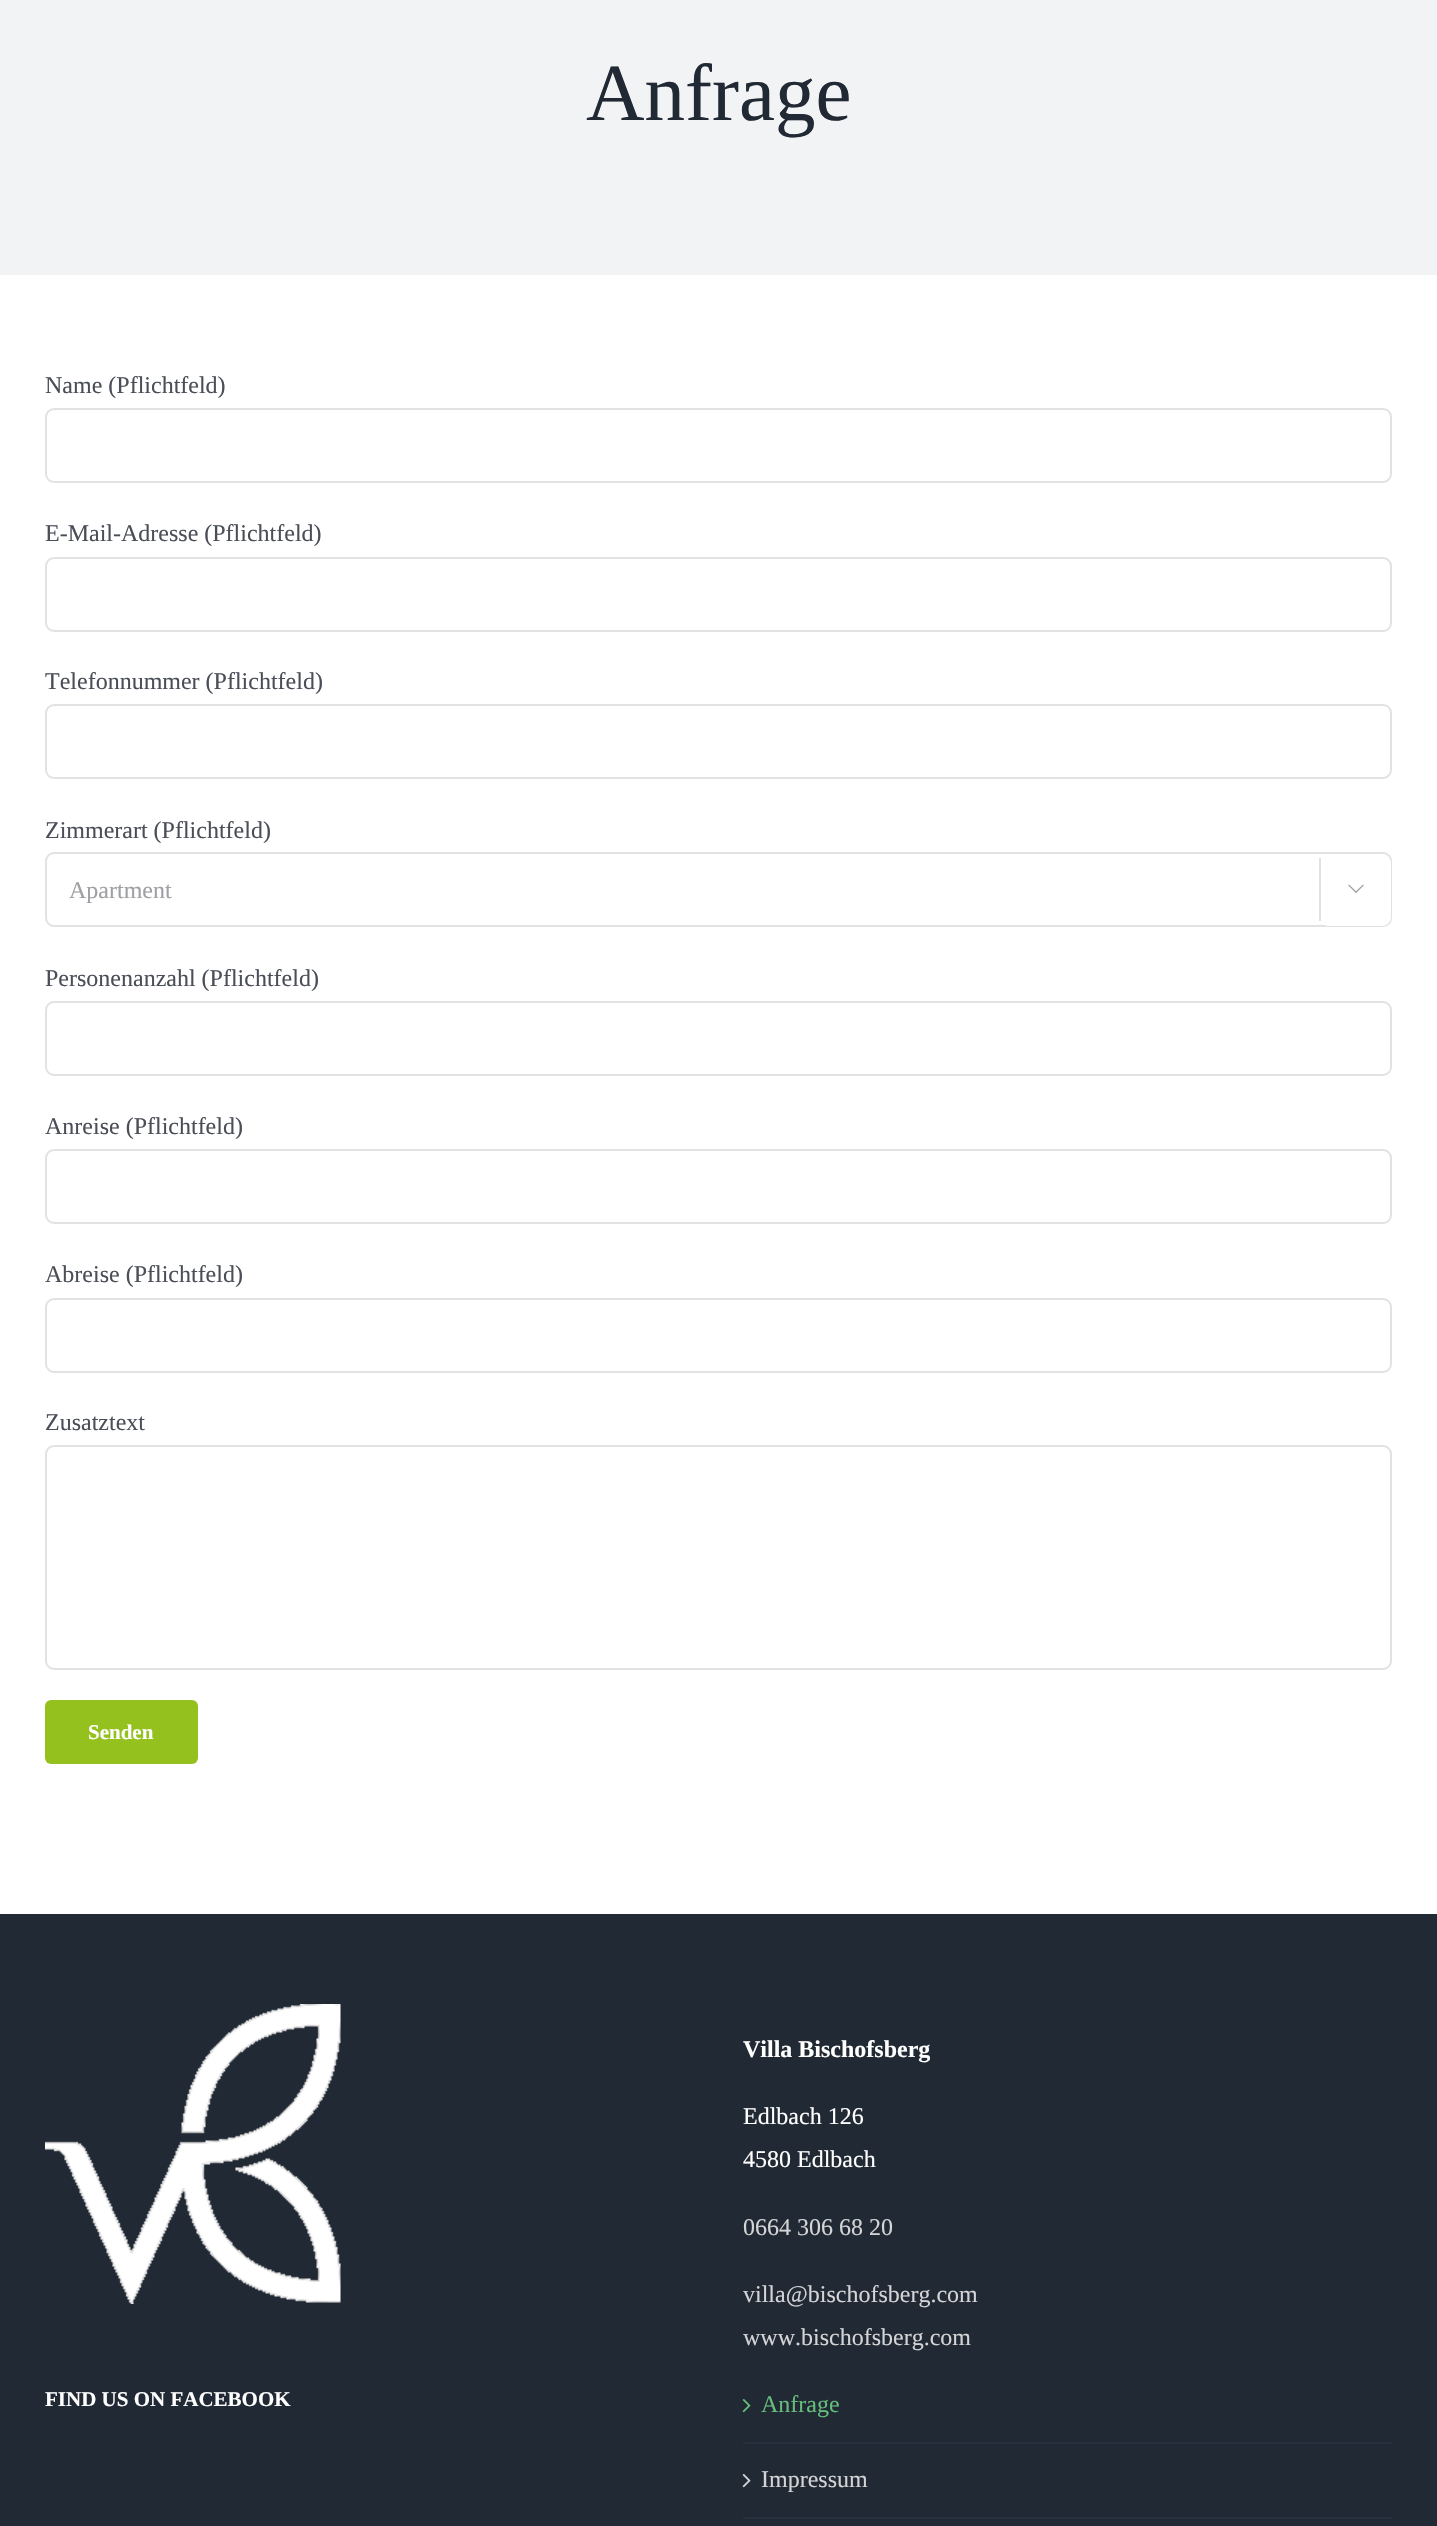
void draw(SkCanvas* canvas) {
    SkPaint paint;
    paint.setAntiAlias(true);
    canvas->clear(0xFFFFFFFF);
    paint.setColor(0xFFF2F3F5);
    canvas->drawRect(SkRect::MakeXYWH(0, 0, 1437, 275), paint);
    SkFont font1(fontMgr->matchFamilyStyle("Liberation Serif", SkFontStyle::Normal()), 81);
    font1.setSubpixel(true);
    paint.setColor(0xFF212934);
    canvas->drawString("Anfrage", 586, 120, font1, paint);
    SkFont font2(fontMgr->matchFamilyStyle("Liberation Serif", SkFontStyle::Normal()), 24);
    font2.setSubpixel(true);
    paint.setColor(0xFF4A4E57);
    canvas->drawString("Name (Pflichtfeld)", 45, 393, font2, paint);
    paint.setStyle(SkPaint::kStroke_Style);
    paint.setStrokeWidth(2);
    paint.setColor(0xFFE2E2E2);
    canvas->drawRoundRect(SkRect::MakeXYWH(46, 409, 1345, 73), 8, 8, paint);
    paint.setStyle(SkPaint::kFill_Style);
    paint.setColor(0xFF4A4E57);
    canvas->drawString("E-Mail-Adresse (Pflichtfeld)", 45, 541, font2, paint);
    paint.setStyle(SkPaint::kStroke_Style);
    paint.setColor(0xFFE2E2E2);
    canvas->drawRoundRect(SkRect::MakeXYWH(46, 558, 1345, 73), 8, 8, paint);
    paint.setStyle(SkPaint::kFill_Style);
    paint.setColor(0xFF4A4E57);
    canvas->drawString("Telefonnummer (Pflichtfeld)", 45, 689, font2, paint);
    paint.setStyle(SkPaint::kStroke_Style);
    paint.setColor(0xFFE2E2E2);
    canvas->drawRoundRect(SkRect::MakeXYWH(46, 705, 1345, 73), 8, 8, paint);
    paint.setStyle(SkPaint::kFill_Style);
    paint.setColor(0xFF4A4E57);
    canvas->drawString("Zimmerart (Pflichtfeld)", 45, 838, font2, paint);
    paint.setStyle(SkPaint::kStroke_Style);
    paint.setColor(0xFFE2E2E2);
    canvas->drawRoundRect(SkRect::MakeXYWH(46, 853, 1345, 73), 8, 8, paint);
    canvas->save();
    canvas->clipRect(SkRect::MakeXYWH(69, 878, 1299, 25));
    paint.setStyle(SkPaint::kFill_Style);
    paint.setColor(0xFF9EA0A4);
    canvas->drawString("Apartment", 69, 898, font2, paint);
    canvas->restore();
    paint.setColor(0xFFFFFFFF);
    canvas->drawRoundRect(SkRect::MakeXYWH(1319, 854, 72, 72), 9, 9, paint);
    paint.setColor(0xFFE2E2E2);
    canvas->drawRect(SkRect::MakeXYWH(1319, 858, 2, 63), paint);
    canvas->drawImageRect(SkImages::DeferredFromEncodedData(SkData::MakeFromFileName("img1.png")), SkRect::MakeXYWH(1348, 884, 16, 9), SkSamplingOptions());
    paint.setColor(0xFF4A4E57);
    canvas->drawString("Personenanzahl (Pflichtfeld)", 45, 986, font2, paint);
    paint.setStyle(SkPaint::kStroke_Style);
    paint.setColor(0xFFE2E2E2);
    canvas->drawRoundRect(SkRect::MakeXYWH(46, 1002, 1345, 73), 8, 8, paint);
    paint.setStyle(SkPaint::kFill_Style);
    paint.setColor(0xFF4A4E57);
    canvas->drawString("Anreise (Pflichtfeld)", 45, 1134, font2, paint);
    paint.setStyle(SkPaint::kStroke_Style);
    paint.setColor(0xFFE2E2E2);
    canvas->drawRoundRect(SkRect::MakeXYWH(46, 1150, 1345, 73), 8, 8, paint);
    paint.setStyle(SkPaint::kFill_Style);
    paint.setColor(0xFF4A4E57);
    canvas->drawString("Abreise (Pflichtfeld)", 45, 1282, font2, paint);
    paint.setStyle(SkPaint::kStroke_Style);
    paint.setColor(0xFFE2E2E2);
    canvas->drawRoundRect(SkRect::MakeXYWH(46, 1299, 1345, 73), 8, 8, paint);
    paint.setStyle(SkPaint::kFill_Style);
    paint.setColor(0xFF4A4E57);
    canvas->drawString("Zusatztext", 45, 1430, font2, paint);
    paint.setStyle(SkPaint::kStroke_Style);
    paint.setColor(0xFFE2E2E2);
    canvas->drawRoundRect(SkRect::MakeXYWH(46, 1446, 1345, 223), 8, 8, paint);
    paint.setStyle(SkPaint::kFill_Style);
    paint.setColor(0xFF95C11F);
    canvas->drawRoundRect(SkRect::MakeXYWH(45, 1700, 153, 64), 6, 6, paint);
    SkFont font3(fontMgr->matchFamilyStyle("Liberation Serif", SkFontStyle::Bold()), 21);
    font3.setSubpixel(true);
    paint.setColor(0xFFFFFFFF);
    canvas->drawString("Senden", 88, 1739, font3, paint);
    paint.setColor(0xFF212934);
    canvas->drawRect(SkRect::MakeXYWH(0, 1914, 1437, 612), paint);
    canvas->drawImageRect(SkImages::DeferredFromEncodedData(SkData::MakeFromFileName("img2.png")), SkRect::MakeXYWH(45, 2004, 296, 300), SkSamplingOptions());
    SkFont font4(fontMgr->matchFamilyStyle("Liberation Serif", SkFontStyle::Bold()), 24);
    font4.setSubpixel(true);
    paint.setColor(0xFFFFFFFF);
    canvas->drawString("Villa Bischofsberg", 743, 2057, font4, paint);
    canvas->drawString("Edlbach 126", 743, 2124, font2, paint);
    canvas->drawString("4580 Edlbach", 743, 2167, font2, paint);
    paint.setColor(0xFFD3D4D6);
    canvas->drawString("0664 306 68 20", 743, 2235, font2, paint);
    canvas->drawString("villa@bischofsberg.com", 743, 2302, font2, paint);
    canvas->drawString("www.bischofsberg.com", 743, 2345, font2, paint);
    paint.setColor(0xFFFFFFFF);
    canvas->drawString("FIND US ON FACEBOOK", 45, 2406, font3, paint);
    paint.setColor(0xFF26303E);
    canvas->drawRect(SkRect::MakeXYWH(743, 2442, 649, 2), paint);
    canvas->drawImageRect(SkImages::DeferredFromEncodedData(SkData::MakeFromFileName("img3.png")), SkRect::MakeXYWH(742, 2399, 9, 14), SkSamplingOptions());
    paint.setColor(0xFF65BC7B);
    canvas->drawString("Anfrage", 761, 2412, font2, paint);
    paint.setColor(0xFF26303E);
    canvas->drawRect(SkRect::MakeXYWH(743, 2517, 649, 2), paint);
    canvas->drawImageRect(SkImages::DeferredFromEncodedData(SkData::MakeFromFileName("img4.png")), SkRect::MakeXYWH(742, 2474, 9, 14), SkSamplingOptions());
    paint.setColor(0xFFD3D4D6);
    canvas->drawString("Impressum", 761, 2487, font2, paint);
}
